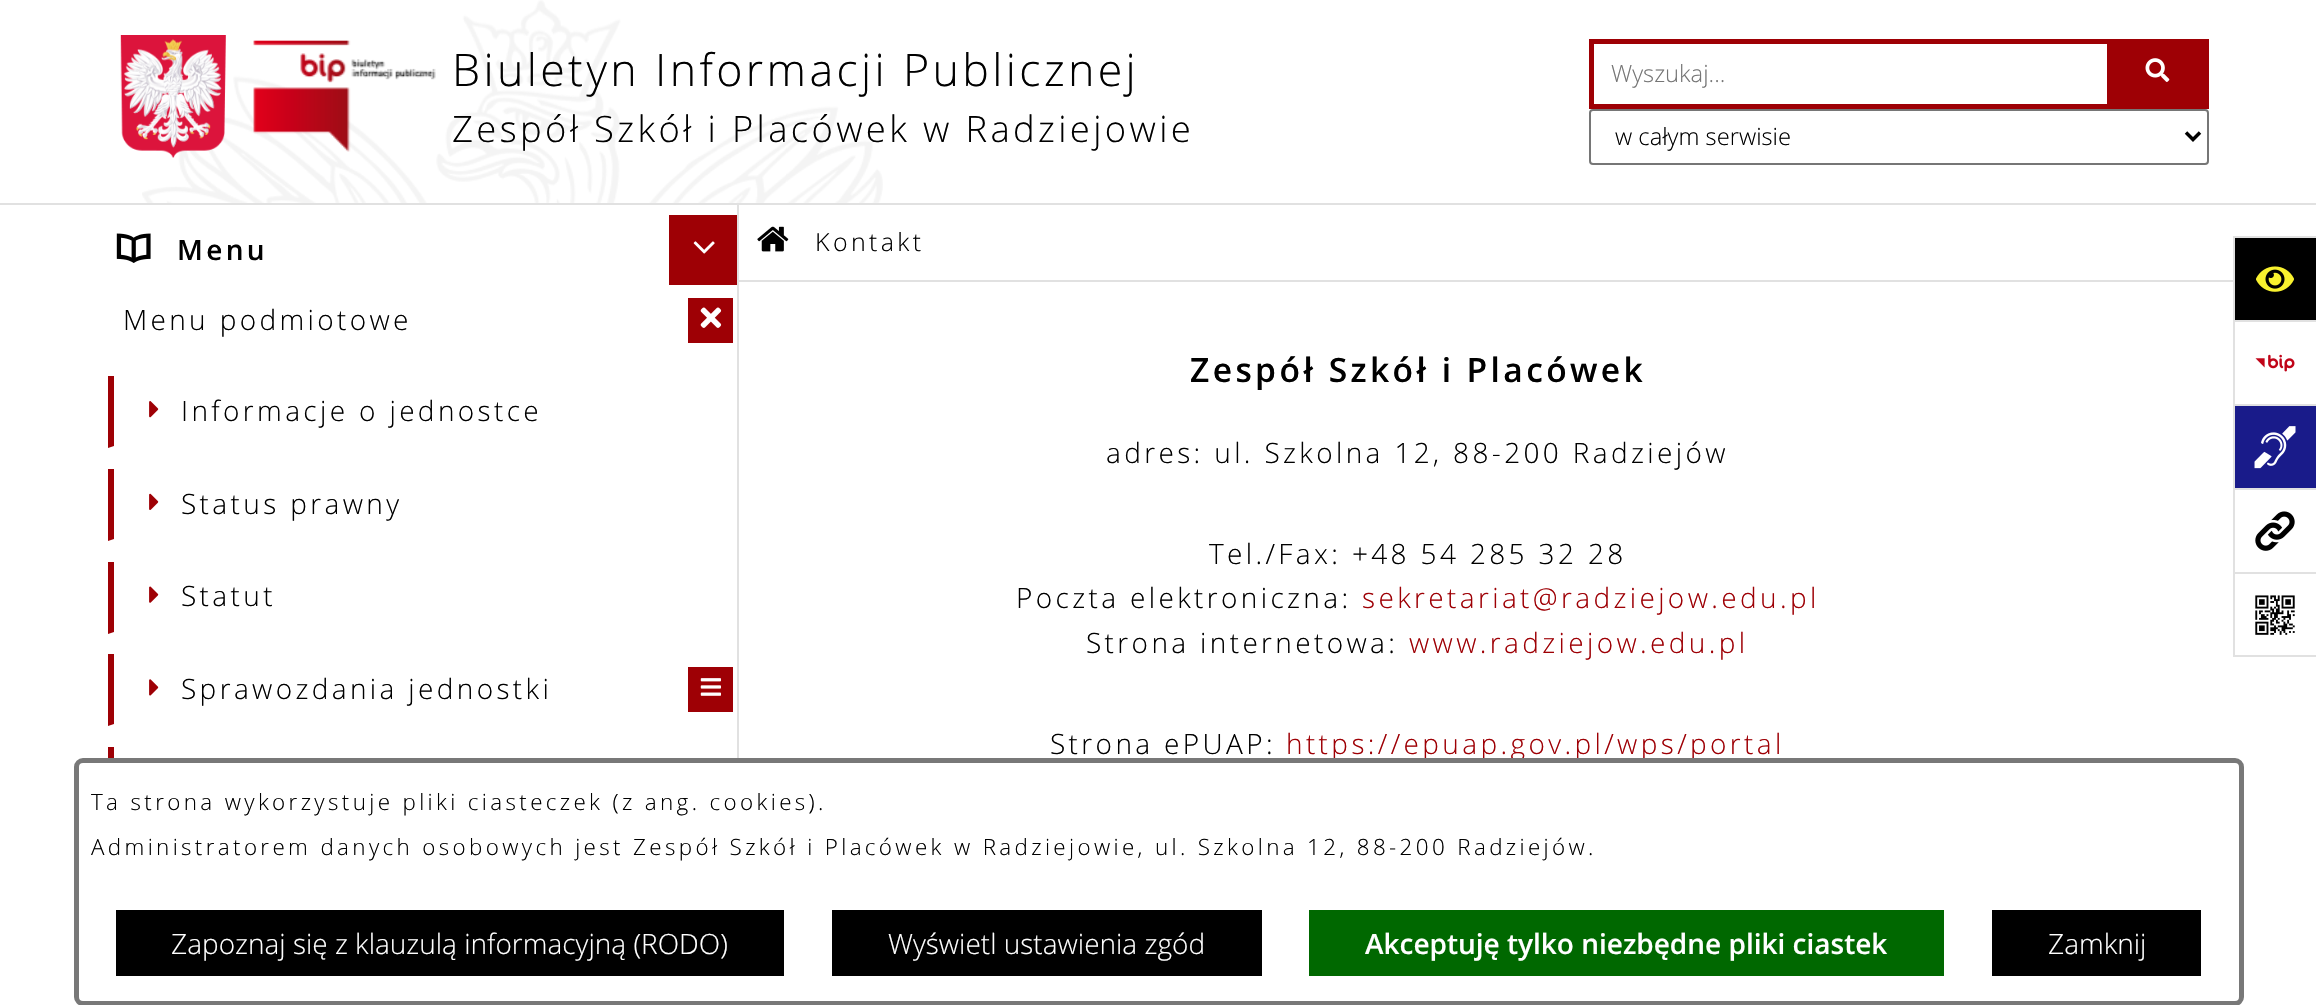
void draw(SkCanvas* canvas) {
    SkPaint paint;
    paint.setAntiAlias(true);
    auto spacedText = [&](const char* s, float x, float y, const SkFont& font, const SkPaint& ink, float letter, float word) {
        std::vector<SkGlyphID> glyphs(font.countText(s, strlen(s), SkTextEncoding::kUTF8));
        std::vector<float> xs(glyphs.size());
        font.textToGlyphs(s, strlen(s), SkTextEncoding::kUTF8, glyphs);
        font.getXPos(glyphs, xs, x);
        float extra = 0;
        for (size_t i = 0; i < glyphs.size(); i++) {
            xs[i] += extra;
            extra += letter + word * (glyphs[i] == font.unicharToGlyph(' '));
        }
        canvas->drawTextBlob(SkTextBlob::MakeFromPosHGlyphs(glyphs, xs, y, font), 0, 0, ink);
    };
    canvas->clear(0xFFFFFFFF);
    paint.setColor(0xFFE1E1E1);
    canvas->drawRect(SkRect::MakeXYWH(737, 203, 2, 555), paint);
    canvas->drawRect(SkRect::MakeXYWH(0, 203, 2316, 2), paint);
    canvas->drawImageRect(SkImages::DeferredFromEncodedData(SkData::MakeFromFileName("img1.png")), SkRect::MakeXYWH(142, 0, 741, 203), SkSamplingOptions());
    canvas->drawImageRect(SkImages::DeferredFromEncodedData(SkData::MakeFromFileName("img2.png")), SkRect::MakeXYWH(120, 35, 106, 123), SkSamplingOptions());
    canvas->drawImageRect(SkImages::DeferredFromEncodedData(SkData::MakeFromFileName("img3.png")), SkRect::MakeXYWH(253, 40, 183, 112), SkSamplingOptions());
    SkFont font1(fontMgr->matchFamilyStyle("Open Sans", SkFontStyle(300, SkFontStyle::kNormal_Width, SkFontStyle::kUpright_Slant)), 44.75f);
    font1.setSubpixel(true);
    paint.setColor(0xFF000000);
    spacedText("Biuletyn Informacji Publicznej", 452, 86, font1, paint, 3.36f, 0);
    SkFont font2(fontMgr->matchFamilyStyle("Open Sans", SkFontStyle(300, SkFontStyle::kNormal_Width, SkFontStyle::kUpright_Slant)), 36.4f);
    font2.setSubpixel(true);
    spacedText("Zespół Szkół i Placówek w Radziejowie", 452, 142, font2, paint, 3.36f, 0);
    paint.setStyle(SkPaint::kStroke_Style);
    paint.setStrokeWidth(5);
    paint.setColor(0xFF9E0005);
    canvas->drawRect(SkRect::MakeXYWH(1591.5f, 41.5f, 518, 65), paint);
    SkFont font3(fontMgr->matchFamilyStyle("Open Sans", SkFontStyle(300, SkFontStyle::kNormal_Width, SkFontStyle::kUpright_Slant)), 23.75f);
    font3.setSubpixel(true);
    paint.setStyle(SkPaint::kFill_Style);
    paint.setColor(0xFF757575);
    canvas->drawString("Wyszukaj...", 1611, 82, font3, paint);
    paint.setColor(0xFF9E0005);
    canvas->drawRect(SkRect::MakeXYWH(2112, 39, 97, 70), paint);
    canvas->drawImageRect(SkImages::DeferredFromEncodedData(SkData::MakeFromFileName("img4.png")), SkRect::MakeXYWH(2145, 58, 25, 24), SkSamplingOptions());
    paint.setStyle(SkPaint::kStroke_Style);
    paint.setStrokeWidth(2);
    paint.setColor(0xFF767676);
    canvas->drawRoundRect(SkRect::MakeXYWH(1590, 110, 618, 54), 3, 3, paint);
    paint.setStrokeWidth(3.5f);
    paint.setColor(0xFF000000);
    canvas->drawPath(SkPathBuilder().moveTo(2186, 132.5f).lineTo(2193, 139.5f).lineTo(2200, 132.5f).detach(), paint);
    paint.setStyle(SkPaint::kFill_Style);
    canvas->drawString("w całym serwisie", 1615, 145, font3, paint);
    canvas->drawImageRect(SkImages::DeferredFromEncodedData(SkData::MakeFromFileName("img5.png")), SkRect::MakeXYWH(116, 233, 35, 30), SkSamplingOptions());
    SkFont font4(fontMgr->matchFamilyStyle("Open Sans", SkFontStyle(600, SkFontStyle::kNormal_Width, SkFontStyle::kUpright_Slant)), 28);
    font4.setSubpixel(true);
    spacedText("Menu", 177, 260, font4, paint, 3.36f, 0);
    paint.setColor(0xFF9E0005);
    canvas->drawRect(SkRect::MakeXYWH(669, 215, 68, 70), paint);
    canvas->drawImageRect(SkImages::DeferredFromEncodedData(SkData::MakeFromFileName("img6.png")), SkRect::MakeXYWH(693, 241, 22, 13), SkSamplingOptions());
    SkFont font5(fontMgr->matchFamilyStyle("Open Sans", SkFontStyle(300, SkFontStyle::kNormal_Width, SkFontStyle::kUpright_Slant)), 28);
    font5.setSubpixel(true);
    paint.setColor(0xFF000000);
    spacedText("Menu podmiotowe", 123, 330, font5, paint, 3.36f, 0);
    paint.setColor(0xFF9E0005);
    canvas->drawRect(SkRect::MakeXYWH(688, 298, 45, 45), paint);
    canvas->drawImageRect(SkImages::DeferredFromEncodedData(SkData::MakeFromFileName("img7.png")), SkRect::MakeXYWH(700, 307, 22, 21), SkSamplingOptions());
    canvas->drawPath(SkPathBuilder().moveTo(108, 448).lineTo(108, 376).lineTo(114, 376).lineTo(114, 446).close().detach(), paint);
    canvas->drawImageRect(SkImages::DeferredFromEncodedData(SkData::MakeFromFileName("img8.png")), SkRect::MakeXYWH(149, 401, 10, 17), SkSamplingOptions());
    paint.setColor(0xFF000000);
    spacedText("Informacje o jednostce", 181, 421, font5, paint, 3.36f, 0);
    paint.setColor(0xFF9E0005);
    canvas->drawPath(SkPathBuilder().moveTo(108, 541).lineTo(108, 469).lineTo(114, 469).lineTo(114, 539).close().detach(), paint);
    canvas->drawImageRect(SkImages::DeferredFromEncodedData(SkData::MakeFromFileName("img9.png")), SkRect::MakeXYWH(149, 493, 10, 17), SkSamplingOptions());
    paint.setColor(0xFF000000);
    spacedText("Status prawny", 181, 514, font5, paint, 3.36f, 0);
    paint.setColor(0xFF9E0005);
    canvas->drawPath(SkPathBuilder().moveTo(108, 634).lineTo(108, 562).lineTo(114, 562).lineTo(114, 632).close().detach(), paint);
    canvas->drawImageRect(SkImages::DeferredFromEncodedData(SkData::MakeFromFileName("img10.png")), SkRect::MakeXYWH(149, 586, 10, 17), SkSamplingOptions());
    paint.setColor(0xFF000000);
    spacedText("Statut", 181, 606, font5, paint, 3.36f, 0);
    paint.setColor(0xFF9E0005);
    canvas->drawPath(SkPathBuilder().moveTo(108, 726).lineTo(108, 654).lineTo(114, 654).lineTo(114, 724).close().detach(), paint);
    canvas->drawImageRect(SkImages::DeferredFromEncodedData(SkData::MakeFromFileName("img11.png")), SkRect::MakeXYWH(149, 679, 10, 17), SkSamplingOptions());
    paint.setColor(0xFF000000);
    spacedText("Sprawozdania jednostki", 181, 699, font5, paint, 3.36f, 0);
    paint.setColor(0xFF9E0005);
    canvas->drawRect(SkRect::MakeXYWH(688, 667, 45, 45), paint);
    canvas->drawImageRect(SkImages::DeferredFromEncodedData(SkData::MakeFromFileName("img12.png")), SkRect::MakeXYWH(700, 678, 21, 18), SkSamplingOptions());
    canvas->drawPath(SkPathBuilder().moveTo(108, 861).lineTo(108, 747).lineTo(114, 747).lineTo(114, 859).close().detach(), paint);
    paint.setColor(0xFF000000);
    canvas->drawRect(SkRect::MakeXYWH(2235, 238, 81, 82), paint);
    paint.setColor(0xFFE1E1E1);
    canvas->drawRect(SkRect::MakeXYWH(2233, 236, 83, 2), paint);
    canvas->drawRect(SkRect::MakeXYWH(2233, 236, 2, 84), paint);
    canvas->drawImageRect(SkImages::DeferredFromEncodedData(SkData::MakeFromFileName("img13.png")), SkRect::MakeXYWH(2256, 266, 38, 26), SkSamplingOptions());
    canvas->drawRect(SkRect::MakeXYWH(2233, 320, 83, 2), paint);
    canvas->drawRect(SkRect::MakeXYWH(2233, 320, 2, 84), paint);
    canvas->drawImageRect(SkImages::DeferredFromEncodedData(SkData::MakeFromFileName("img14.png")), SkRect::MakeXYWH(2255, 354, 40, 18), SkSamplingOptions());
    paint.setColor(0xFF191B8A);
    canvas->drawRect(SkRect::MakeXYWH(2235, 406, 81, 82), paint);
    paint.setColor(0xFFE1E1E1);
    canvas->drawRect(SkRect::MakeXYWH(2233, 404, 83, 2), paint);
    canvas->drawRect(SkRect::MakeXYWH(2233, 404, 2, 84), paint);
    canvas->drawImageRect(SkImages::DeferredFromEncodedData(SkData::MakeFromFileName("img15.png")), SkRect::MakeXYWH(2254, 426, 42, 43), SkSamplingOptions());
    canvas->drawRect(SkRect::MakeXYWH(2233, 488, 83, 2), paint);
    canvas->drawRect(SkRect::MakeXYWH(2233, 488, 2, 84), paint);
    canvas->drawImageRect(SkImages::DeferredFromEncodedData(SkData::MakeFromFileName("img16.png")), SkRect::MakeXYWH(2255, 511, 40, 40), SkSamplingOptions());
    canvas->drawRect(SkRect::MakeXYWH(2233, 572, 83, 2), paint);
    canvas->drawRect(SkRect::MakeXYWH(2233, 655, 83, 2), paint);
    canvas->drawRect(SkRect::MakeXYWH(2233, 572, 2, 84), paint);
    canvas->drawImageRect(SkImages::DeferredFromEncodedData(SkData::MakeFromFileName("img17.png")), SkRect::MakeXYWH(2255, 595, 40, 40), SkSamplingOptions());
    canvas->drawRect(SkRect::MakeXYWH(739, 280, 1494, 2), paint);
    canvas->drawImageRect(SkImages::DeferredFromEncodedData(SkData::MakeFromFileName("img18.png")), SkRect::MakeXYWH(757, 226, 32, 26), SkSamplingOptions());
    SkFont font6(fontMgr->matchFamilyStyle("Open Sans", SkFontStyle(300, SkFontStyle::kNormal_Width, SkFontStyle::kUpright_Slant)), 25);
    font6.setSubpixel(true);
    paint.setColor(0xFF000000);
    spacedText("Kontakt", 815, 251, font6, paint, 3.36f, 0);
    SkFont font7(fontMgr->matchFamilyStyle("Open Sans", SkFontStyle(600, SkFontStyle::kNormal_Width, SkFontStyle::kUpright_Slant)), 33.6f);
    font7.setSubpixel(true);
    spacedText("Zespół Szkół i Placówek", 1190, 382, font7, paint, 3.36f, 0);
    spacedText("adres: ul. Szkolna 12, 88-200 Radziejów", 1106, 463, font5, paint, 3.36f, 0);
    spacedText("Tel./Fax: +48 54 285 32 28", 1209, 564, font5, paint, 3.36f, 0);
    spacedText("Poczta elektroniczna:", 1016, 608, font5, paint, 3.36f, 0);
    paint.setColor(0xFF9E0005);
    spacedText("sekretariat@radziejow.edu.pl", 1362, 608, font5, paint, 3.36f, 0);
    paint.setColor(0xFF000000);
    spacedText("Strona internetowa:", 1086, 653, font5, paint, 3.36f, 0);
    paint.setColor(0xFF9E0005);
    spacedText("www.radziejow.edu.pl", 1409, 653, font5, paint, 3.36f, 0);
    paint.setColor(0xFF000000);
    spacedText("Strona ePUAP:", 1050, 754, font5, paint, 3.36f, 0);
    paint.setColor(0xFF9E0005);
    spacedText("https://epuap.gov.pl/wps/portal", 1286, 754, font5, paint, 3.36f, 0);
    paint.setColor(0xFFFFFFFF);
    canvas->drawRoundRect(SkRect::MakeXYWH(76.5f, 760.5f, 2165, 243), 6.5f, 6.5f, paint);
    paint.setStyle(SkPaint::kStroke_Style);
    paint.setStrokeWidth(5);
    paint.setColor(0xFF787878);
    canvas->drawRoundRect(SkRect::MakeXYWH(76.5f, 760.5f, 2165, 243), 6.5f, 6.5f, paint);
    SkFont font8(fontMgr->matchFamilyStyle("Open Sans", SkFontStyle(300, SkFontStyle::kNormal_Width, SkFontStyle::kUpright_Slant)), 22.4f);
    font8.setSubpixel(true);
    paint.setStyle(SkPaint::kFill_Style);
    paint.setColor(0xFF000000);
    spacedText("Ta strona wykorzystuje pliki ciasteczek (z ang. cookies).", 91, 810, font8, paint, 3.36f, 0);
    spacedText("Administratorem danych osobowych jest Zespół Szkół i Placówek w Radziejowie, ul. Szkolna 12, 88-200 Radziejów.", 91, 855, font8, paint, 3.36f, 0);
    canvas->drawRect(SkRect::MakeXYWH(116, 910, 668, 66), paint);
    paint.setColor(0xFFFFFFFF);
    canvas->drawString("Zapoznaj się z klauzulą informacyjną (RODO)", 171, 954, font5, paint);
    paint.setColor(0xFF000000);
    canvas->drawRect(SkRect::MakeXYWH(832, 910, 430, 66), paint);
    paint.setColor(0xFFFFFFFF);
    canvas->drawString("Wyświetl ustawienia zgód", 888, 954, font5, paint);
    paint.setColor(0xFF006800);
    canvas->drawRect(SkRect::MakeXYWH(1309, 910, 635, 66), paint);
    paint.setColor(0xFFFFFFFF);
    canvas->drawString("Akceptuję tylko niezbędne pliki ciastek", 1365, 954, font4, paint);
    paint.setColor(0xFF000000);
    canvas->drawRect(SkRect::MakeXYWH(1992, 910, 209, 66), paint);
    paint.setColor(0xFFFFFFFF);
    canvas->drawString("Zamknij", 2048, 954, font5, paint);
}
